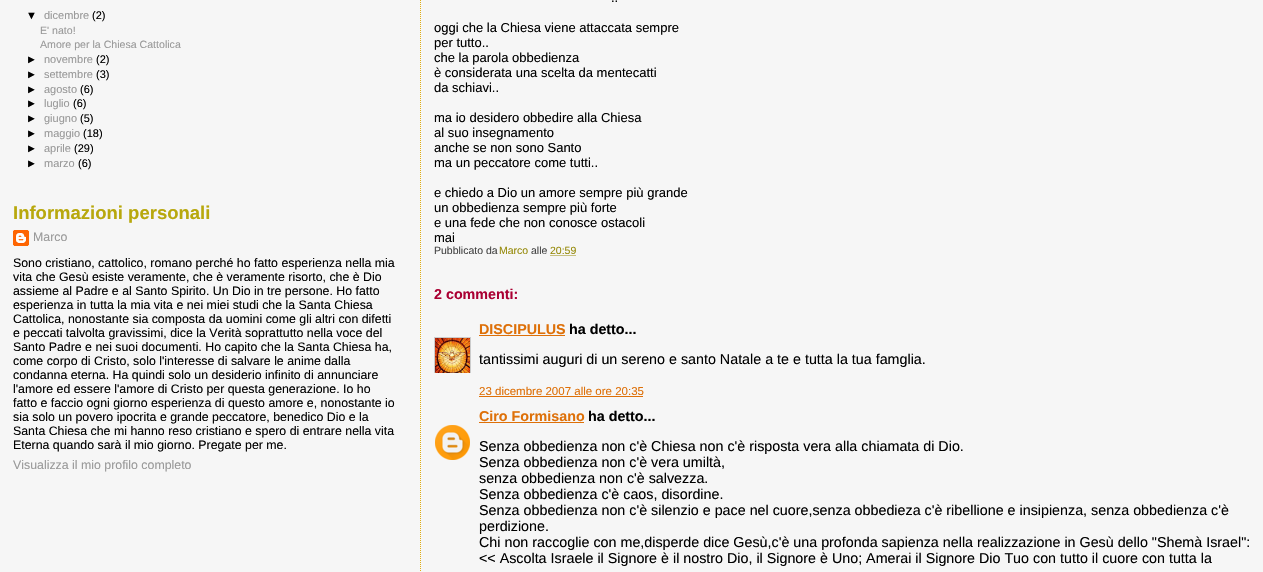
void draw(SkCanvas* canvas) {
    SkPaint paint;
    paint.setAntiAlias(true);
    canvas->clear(0xFFF6F6F6);
    SkFont font1(fontMgr->matchFamilyStyle("Liberation Sans", SkFontStyle::Normal()), 11);
    font1.setSubpixel(true);
    paint.setColor(0xFF000000);
    canvas->drawString("▼", 26, 19, font1, paint);
    paint.setColor(0xFF999999);
    canvas->drawString("dicembre", 44, 19, font1, paint);
    paint.setColor(0xFF000000);
    canvas->drawString("(2)", 92, 19, font1, paint);
    SkFont font2(fontMgr->matchFamilyStyle("Liberation Sans", SkFontStyle::Normal()), 10.6f);
    font2.setSubpixel(true);
    paint.setColor(0xFF999999);
    canvas->drawString("E' nato!", 40, 34, font2, paint);
    canvas->drawString("Amore per la Chiesa Cattolica", 40, 48, font2, paint);
    paint.setColor(0xFF000000);
    canvas->drawString("►", 26, 63, font1, paint);
    paint.setColor(0xFF999999);
    canvas->drawString("novembre", 44, 63, font1, paint);
    paint.setColor(0xFF000000);
    canvas->drawString("(2)", 96, 63, font1, paint);
    canvas->drawString("►", 26, 78, font1, paint);
    paint.setColor(0xFF999999);
    canvas->drawString("settembre", 44, 78, font1, paint);
    paint.setColor(0xFF000000);
    canvas->drawString("(3)", 96, 78, font1, paint);
    canvas->drawString("►", 26, 93, font1, paint);
    paint.setColor(0xFF999999);
    canvas->drawString("agosto", 44, 93, font1, paint);
    paint.setColor(0xFF000000);
    canvas->drawString("(6)", 80, 93, font1, paint);
    canvas->drawString("►", 26, 107, font1, paint);
    paint.setColor(0xFF999999);
    canvas->drawString("luglio", 44, 107, font1, paint);
    paint.setColor(0xFF000000);
    canvas->drawString("(6)", 73, 107, font1, paint);
    canvas->drawString("►", 26, 122, font1, paint);
    paint.setColor(0xFF999999);
    canvas->drawString("giugno", 44, 122, font1, paint);
    paint.setColor(0xFF000000);
    canvas->drawString("(5)", 80, 122, font1, paint);
    canvas->drawString("►", 26, 137, font1, paint);
    paint.setColor(0xFF999999);
    canvas->drawString("maggio", 44, 137, font1, paint);
    paint.setColor(0xFF000000);
    canvas->drawString("(18)", 83, 137, font1, paint);
    canvas->drawString("►", 26, 152, font1, paint);
    paint.setColor(0xFF999999);
    canvas->drawString("aprile", 44, 152, font1, paint);
    paint.setColor(0xFF000000);
    canvas->drawString("(29)", 74, 152, font1, paint);
    canvas->drawString("►", 26, 167, font1, paint);
    paint.setColor(0xFF999999);
    canvas->drawString("marzo", 44, 167, font1, paint);
    paint.setColor(0xFF000000);
    canvas->drawString("(6)", 78, 167, font1, paint);
    SkFont font3(fontMgr->matchFamilyStyle("Liberation Sans", SkFontStyle::Bold()), 18.5f);
    font3.setSubpixel(true);
    paint.setColor(0xFFB8A80D);
    canvas->drawString("Informazioni personali", 13, 219, font3, paint);
    canvas->drawImageRect(SkImages::DeferredFromEncodedData(SkData::MakeFromFileName("img1.png")), SkRect::MakeXYWH(13, 230, 16, 16), SkSamplingOptions());
    SkFont font4(fontMgr->matchFamilyStyle("Liberation Sans", SkFontStyle::Normal()), 12.35f);
    font4.setSubpixel(true);
    paint.setColor(0xFF999999);
    canvas->drawString("Marco", 33, 241, font4, paint);
    paint.setColor(0xFF000000);
    canvas->drawString("Sono cristiano, cattolico, romano perché ho fatto esperienza nella mia", 13, 267, font4, paint);
    canvas->drawString("vita che Gesù esiste veramente, che è veramente risorto, che è Dio", 13, 281, font4, paint);
    canvas->drawString("assieme al Padre e al Santo Spirito. Un Dio in tre persone. Ho fatto", 13, 295, font4, paint);
    canvas->drawString("esperienza in tutta la mia vita e nei miei studi che la Santa Chiesa", 13, 309, font4, paint);
    canvas->drawString("Cattolica, nonostante sia composta da uomini come gli altri con difetti", 13, 323, font4, paint);
    canvas->drawString("e peccati talvolta gravissimi, dice la Verità soprattutto nella voce del", 13, 337, font4, paint);
    canvas->drawString("Santo Padre e nei suoi documenti. Ho capito che la Santa Chiesa ha,", 13, 351, font4, paint);
    canvas->drawString("come corpo di Cristo, solo l'interesse di salvare le anime dalla", 13, 365, font4, paint);
    canvas->drawString("condanna eterna. Ha quindi solo un desiderio infinito di annunciare", 13, 379, font4, paint);
    canvas->drawString("l'amore ed essere l'amore di Cristo per questa generazione. Io ho", 13, 393, font4, paint);
    canvas->drawString("fatto e faccio ogni giorno esperienza di questo amore e, nonostante io", 13, 407, font4, paint);
    canvas->drawString("sia solo un povero ipocrita e grande peccatore, benedico Dio e la", 13, 421, font4, paint);
    canvas->drawString("Santa Chiesa che mi hanno reso cristiano e spero di entrare nella vita", 13, 435, font4, paint);
    canvas->drawString("Eterna quando sarà il mio giorno. Pregate per me.", 13, 449, font4, paint);
    paint.setColor(0xFF999999);
    canvas->drawString("Visualizza il mio profilo completo", 13, 469, font4, paint);
    paint.setStyle(SkPaint::kStroke_Style);
    paint.setStrokeWidth(1);
    paint.setColor(0xFFE0AD12);
    paint.setPathEffect(SkDashPathEffect::Make({{1, 1}}, 0));
    canvas->drawPath(SkPathBuilder().moveTo(420.5f, -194).lineTo(420.5f, 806).detach(), paint);
    paint.setPathEffect(nullptr);
    SkFont font5(fontMgr->matchFamilyStyle("Liberation Sans", SkFontStyle::Normal()), 13);
    font5.setSubpixel(true);
    paint.setStyle(SkPaint::kFill_Style);
    paint.setColor(0xFF000000);
    canvas->drawString("..", 611, 2, font5, paint);
    canvas->drawString("oggi che la Chiesa viene attaccata sempre", 434, 32, font5, paint);
    canvas->drawString("per tutto..", 434, 47, font5, paint);
    canvas->drawString("che la parola obbedienza", 434, 62, font5, paint);
    canvas->drawString("è considerata una scelta da mentecatti", 434, 77, font5, paint);
    canvas->drawString("da schiavi..", 434, 92, font5, paint);
    canvas->drawString("ma io desidero obbedire alla Chiesa", 434, 122, font5, paint);
    canvas->drawString("al suo insegnamento", 434, 137, font5, paint);
    canvas->drawString("anche se non sono Santo", 434, 152, font5, paint);
    canvas->drawString("ma un peccatore come tutti..", 434, 167, font5, paint);
    canvas->drawString("e chiedo a Dio un amore sempre più grande", 434, 197, font5, paint);
    canvas->drawString("un obbedienza sempre più forte", 434, 212, font5, paint);
    canvas->drawString("e una fede che non conosce ostacoli", 434, 227, font5, paint);
    canvas->drawString("mai", 434, 242, font5, paint);
    SkFont font6(fontMgr->matchFamilyStyle("Liberation Sans", SkFontStyle::Normal()), 10.5f);
    font6.setSubpixel(true);
    paint.setColor(0xFF444444);
    canvas->drawString("Pubblicato da", 434, 254, font6, paint);
    paint.setColor(0xFF968A0A);
    canvas->drawString("Marco", 499, 254, font6, paint);
    paint.setColor(0xFF444444);
    canvas->drawString("alle", 531, 254, font6, paint);
    paint.setColor(0xFF968A0A);
    canvas->drawString("20:59", 550, 254, font6, paint);
    paint.setStyle(SkPaint::kStroke_Style);
    paint.setPathEffect(SkDashPathEffect::Make({{1, 1}}, 0));
    canvas->drawPath(SkPathBuilder().moveTo(550.5f, 255.5f).lineTo(576.5f, 255.5f).detach(), paint);
    paint.setPathEffect(nullptr);
    SkFont font7(fontMgr->matchFamilyStyle("Liberation Sans", SkFontStyle::Bold()), 14.3f);
    font7.setSubpixel(true);
    paint.setStyle(SkPaint::kFill_Style);
    paint.setColor(0xFFAA0033);
    canvas->drawString("2 commenti:", 434, 299, font7, paint);
    paint.setColor(0xFFDE7008);
    canvas->drawString("DISCIPULUS", 479, 334, font7, paint);
    canvas->drawRect(SkRect::MakeXYWH(479, 335, 86, 1), paint);
    paint.setColor(0xFF000000);
    canvas->drawString("ha detto...", 569, 334, font7, paint);
    canvas->save();
    canvas->clipRect(SkRect::MakeXYWH(434, 337, 37, 36));
    paint.setStyle(SkPaint::kStroke_Style);
    paint.setColor(0xFFCCCCCC);
    canvas->drawRect(SkRect::MakeXYWH(434.5f, 337.5f, 36, 36), paint);
    canvas->restore();
    canvas->drawImageRect(SkImages::DeferredFromEncodedData(SkData::MakeFromFileName("img2.png")), SkRect::MakeXYWH(435, 338, 35, 35), SkSamplingOptions());
    SkFont font8(fontMgr->matchFamilyStyle("Liberation Sans", SkFontStyle::Normal()), 14.3f);
    font8.setSubpixel(true);
    paint.setStyle(SkPaint::kFill_Style);
    paint.setColor(0xFF000000);
    canvas->drawString("tantissimi auguri di un sereno e santo Natale a te e tutta la tua famglia.", 479, 364, font8, paint);
    SkFont font9(fontMgr->matchFamilyStyle("Liberation Sans", SkFontStyle::Normal()), 11.5f);
    font9.setSubpixel(true);
    paint.setColor(0xFFDE7008);
    canvas->drawString("23 dicembre 2007 alle ore 20:35", 479, 395, font9, paint);
    canvas->drawRect(SkRect::MakeXYWH(479, 396, 164, 1), paint);
    canvas->drawString("Ciro Formisano", 479, 421, font7, paint);
    canvas->drawRect(SkRect::MakeXYWH(479, 422, 105, 1), paint);
    paint.setColor(0xFF000000);
    canvas->drawString("ha detto...", 588, 421, font7, paint);
    canvas->drawImageRect(SkImages::DeferredFromEncodedData(SkData::MakeFromFileName("img3.png")), SkRect::MakeXYWH(435, 425, 35, 35), SkSamplingOptions());
    canvas->drawString("Senza obbedienza non c'è Chiesa non c'è risposta vera alla chiamata di Dio.", 479, 451, font8, paint);
    canvas->drawString("Senza obbedienza non c'è vera umiltà,", 479, 467, font8, paint);
    canvas->drawString("senza obbedienza non c'è salvezza.", 479, 483, font8, paint);
    canvas->drawString("Senza obbedienza c'è caos, disordine.", 479, 499, font8, paint);
    canvas->drawString("Senza obbedienza non c'è silenzio e pace nel cuore,senza obbedieza c'è ribellione e insipienza, senza obbedienza c'è", 479, 515, font8, paint);
    canvas->drawString("perdizione.", 479, 531, font8, paint);
    canvas->drawString("Chi non raccoglie con me,disperde dice Gesù,c'è una profonda sapienza nella realizzazione in Gesù dello \"Shemà Israel\":", 479, 547, font8, paint);
    canvas->drawString("<< Ascolta Israele il Signore è il nostro Dio, il Signore è Uno; Amerai il Signore Dio Tuo con tutto il cuore con tutta la", 479, 563, font8, paint);
}
